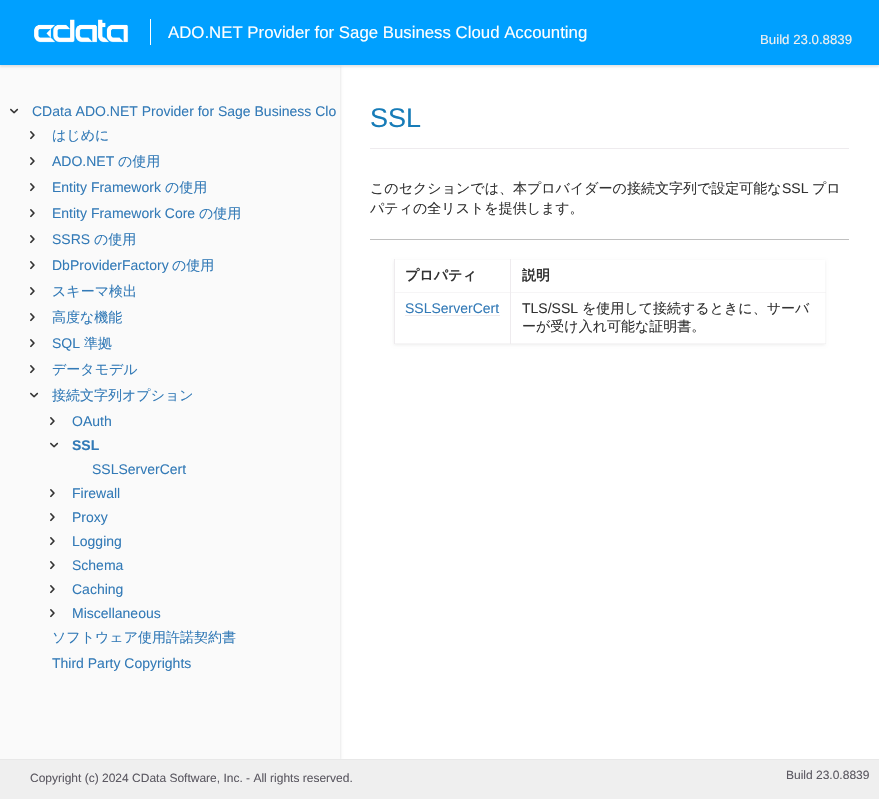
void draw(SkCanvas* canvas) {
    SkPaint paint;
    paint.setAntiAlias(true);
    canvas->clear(0xFFFFFFFF);
    paint.setColor(0x26000000);
    paint.setMaskFilter(SkMaskFilter::MakeBlur(kNormal_SkBlurStyle, 1.5f));
    canvas->drawRect(SkRect::MakeXYWH(0, 66, 340, 694), paint);
    paint.setMaskFilter(nullptr);
    paint.setColor(0xFFFAFAFA);
    canvas->drawRect(SkRect::MakeXYWH(0, 65, 340, 694), paint);
    paint.setColor(0x1A000000);
    paint.setMaskFilter(SkMaskFilter::MakeBlur(kNormal_SkBlurStyle, 1));
    canvas->drawRect(SkRect::MakeXYWH(0, 2, 879, 65), paint);
    paint.setMaskFilter(nullptr);
    paint.setColor(0xFF00A0FF);
    canvas->drawRect(SkRect::MakeXYWH(0, 0, 879, 65), paint);
    canvas->drawImageRect(SkImages::DeferredFromEncodedData(SkData::MakeFromFileName("img1.png")), SkRect::MakeXYWH(34, 19, 95, 24), SkSamplingOptions());
    paint.setColor(0xFFFFFFFF);
    canvas->drawRect(SkRect::MakeXYWH(150, 19, 1, 26), paint);
    SkFont font1(fontMgr->matchFamilyStyle("Liberation Sans", SkFontStyle::Normal()), 16.8f);
    font1.setSubpixel(true);
    canvas->drawString("ADO.NET Provider for Sage Business Cloud Accounting", 168, 38, font1, paint);
    SkFont font2(fontMgr->matchFamilyStyle("Liberation Sans", SkFontStyle::Normal()), 13.25f);
    font2.setSubpixel(true);
    paint.setColor(0xFFEFEFEF);
    canvas->drawString("Build 23.0.8839", 760, 44, font2, paint);
    canvas->drawImageRect(SkImages::DeferredFromEncodedData(SkData::MakeFromFileName("img2.png")), SkRect::MakeXYWH(10, 108, 9, 6), SkSamplingOptions());
    SkFont font3(fontMgr->matchFamilyStyle("Liberation Sans", SkFontStyle::Normal()), 14);
    font3.setSubpixel(true);
    paint.setColor(0xFF337AB7);
    canvas->drawString("CData ADO.NET Provider for Sage Business Clo", 32, 116, font3, paint);
    canvas->drawImageRect(SkImages::DeferredFromEncodedData(SkData::MakeFromFileName("img3.png")), SkRect::MakeXYWH(30, 131, 5, 9), SkSamplingOptions());
    SkFont font4(fontMgr->matchFamilyStyle("WenQuanYi Zen Hei", SkFontStyle(500, SkFontStyle::kNormal_Width, SkFontStyle::kUpright_Slant)), 14);
    font4.setSubpixel(true);
    canvas->drawString("はじめに", 52, 140, font4, paint);
    canvas->drawImageRect(SkImages::DeferredFromEncodedData(SkData::MakeFromFileName("img3.png")), SkRect::MakeXYWH(30, 157, 5, 9), SkSamplingOptions());
    canvas->drawString("ADO.NET", 52, 166, font3, paint);
    canvas->drawString("の使用", 118, 166, font4, paint);
    canvas->drawImageRect(SkImages::DeferredFromEncodedData(SkData::MakeFromFileName("img3.png")), SkRect::MakeXYWH(30, 183, 5, 9), SkSamplingOptions());
    canvas->drawString("Entity Framework", 52, 192, font3, paint);
    canvas->drawString("の使用", 165, 192, font4, paint);
    canvas->drawImageRect(SkImages::DeferredFromEncodedData(SkData::MakeFromFileName("img3.png")), SkRect::MakeXYWH(30, 209, 5, 9), SkSamplingOptions());
    canvas->drawString("Entity Framework Core", 52, 218, font3, paint);
    canvas->drawString("の使用", 199, 218, font4, paint);
    canvas->drawImageRect(SkImages::DeferredFromEncodedData(SkData::MakeFromFileName("img3.png")), SkRect::MakeXYWH(30, 235, 5, 9), SkSamplingOptions());
    canvas->drawString("SSRS", 52, 244, font3, paint);
    canvas->drawString("の使用", 94, 244, font4, paint);
    canvas->drawImageRect(SkImages::DeferredFromEncodedData(SkData::MakeFromFileName("img3.png")), SkRect::MakeXYWH(30, 261, 5, 9), SkSamplingOptions());
    canvas->drawString("DbProviderFactory", 52, 270, font3, paint);
    canvas->drawString("の使用", 172, 270, font4, paint);
    canvas->drawImageRect(SkImages::DeferredFromEncodedData(SkData::MakeFromFileName("img3.png")), SkRect::MakeXYWH(30, 287, 5, 9), SkSamplingOptions());
    canvas->drawString("スキーマ検出", 52, 296, font4, paint);
    canvas->drawImageRect(SkImages::DeferredFromEncodedData(SkData::MakeFromFileName("img3.png")), SkRect::MakeXYWH(30, 313, 5, 9), SkSamplingOptions());
    canvas->drawString("高度な機能", 52, 322, font4, paint);
    canvas->drawImageRect(SkImages::DeferredFromEncodedData(SkData::MakeFromFileName("img3.png")), SkRect::MakeXYWH(30, 339, 5, 9), SkSamplingOptions());
    canvas->drawString("SQL", 52, 348, font3, paint);
    canvas->drawString("準拠", 84, 348, font4, paint);
    canvas->drawImageRect(SkImages::DeferredFromEncodedData(SkData::MakeFromFileName("img3.png")), SkRect::MakeXYWH(30, 365, 5, 9), SkSamplingOptions());
    canvas->drawString("データモデル", 52, 374, font4, paint);
    canvas->drawImageRect(SkImages::DeferredFromEncodedData(SkData::MakeFromFileName("img2.png")), SkRect::MakeXYWH(30, 392, 9, 6), SkSamplingOptions());
    canvas->drawString("接続文字列オプション", 52, 400, font4, paint);
    canvas->drawImageRect(SkImages::DeferredFromEncodedData(SkData::MakeFromFileName("img3.png")), SkRect::MakeXYWH(50, 417, 5, 9), SkSamplingOptions());
    canvas->drawString("OAuth", 72, 426, font3, paint);
    canvas->drawImageRect(SkImages::DeferredFromEncodedData(SkData::MakeFromFileName("img2.png")), SkRect::MakeXYWH(50, 442, 9, 6), SkSamplingOptions());
    SkFont font5(fontMgr->matchFamilyStyle("Liberation Sans", SkFontStyle::Bold()), 14);
    font5.setSubpixel(true);
    canvas->drawString("SSL", 72, 450, font5, paint);
    canvas->drawString("SSLServerCert", 92, 474, font3, paint);
    canvas->drawImageRect(SkImages::DeferredFromEncodedData(SkData::MakeFromFileName("img3.png")), SkRect::MakeXYWH(50, 489, 5, 9), SkSamplingOptions());
    canvas->drawString("Firewall", 72, 498, font3, paint);
    canvas->drawImageRect(SkImages::DeferredFromEncodedData(SkData::MakeFromFileName("img3.png")), SkRect::MakeXYWH(50, 513, 5, 9), SkSamplingOptions());
    canvas->drawString("Proxy", 72, 522, font3, paint);
    canvas->drawImageRect(SkImages::DeferredFromEncodedData(SkData::MakeFromFileName("img3.png")), SkRect::MakeXYWH(50, 537, 5, 9), SkSamplingOptions());
    canvas->drawString("Logging", 72, 546, font3, paint);
    canvas->drawImageRect(SkImages::DeferredFromEncodedData(SkData::MakeFromFileName("img3.png")), SkRect::MakeXYWH(50, 561, 5, 9), SkSamplingOptions());
    canvas->drawString("Schema", 72, 570, font3, paint);
    canvas->drawImageRect(SkImages::DeferredFromEncodedData(SkData::MakeFromFileName("img3.png")), SkRect::MakeXYWH(50, 585, 5, 9), SkSamplingOptions());
    canvas->drawString("Caching", 72, 594, font3, paint);
    canvas->drawImageRect(SkImages::DeferredFromEncodedData(SkData::MakeFromFileName("img3.png")), SkRect::MakeXYWH(50, 609, 5, 9), SkSamplingOptions());
    canvas->drawString("Miscellaneous", 72, 618, font3, paint);
    canvas->drawString("ソフトウェア使用許諾契約書", 52, 642, font4, paint);
    canvas->drawString("Third Party Copyrights", 52, 668, font3, paint);
    paint.setColor(0xFFEEEBEE);
    canvas->drawRect(SkRect::MakeXYWH(370, 148, 479, 1), paint);
    SkFont font6(fontMgr->matchFamilyStyle("Liberation Sans", SkFontStyle::Normal()), 27);
    font6.setSubpixel(true);
    paint.setColor(0xFF177CB8);
    canvas->drawString("SSL", 370, 127, font6, paint);
    paint.setColor(0xFF333333);
    canvas->drawString("このセクションでは、本プロバイダーの接続文字列で設定可能な", 370, 193, font4, paint);
    canvas->drawString("SSL", 782, 193, font3, paint);
    canvas->drawString("プロ", 812, 193, font4, paint);
    canvas->drawString("パティの全リストを提供します。", 370, 213, font4, paint);
    paint.setColor(0xFFC0C0C0);
    canvas->drawRect(SkRect::MakeXYWH(370, 239, 479, 1), paint);
    canvas->save();
    canvas->clipPath(SkPathBuilder(SkPathFillType::kEvenOdd).moveTo(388, 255).lineTo(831, 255).lineTo(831, 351).lineTo(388, 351).close().moveTo(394, 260).lineTo(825, 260).lineTo(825, 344).lineTo(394, 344).close().detach(), true);
    paint.setColor(0x12000000);
    paint.setMaskFilter(SkMaskFilter::MakeBlur(kNormal_SkBlurStyle, 1.5f));
    canvas->drawRect(SkRect::MakeXYWH(394, 261, 431, 84), paint);
    paint.setMaskFilter(nullptr);
    canvas->restore();
    paint.setColor(0x80EEEBEE);
    canvas->drawRect(SkRect::MakeXYWH(510, 343, 316, 1), paint);
    paint.setColor(0xFFEEEBEE);
    canvas->drawRect(SkRect::MakeXYWH(510, 292, 1, 52), paint);
    paint.setColor(0x80EEEBEE);
    canvas->drawRect(SkRect::MakeXYWH(510, 292, 316, 1), paint);
    paint.setColor(0xFFEEEBEE);
    canvas->drawRect(SkRect::MakeXYWH(510, 259, 1, 34), paint);
    paint.setColor(0x80EEEBEE);
    canvas->drawRect(SkRect::MakeXYWH(394, 343, 117, 1), paint);
    paint.setColor(0xFFEEEBEE);
    canvas->drawRect(SkRect::MakeXYWH(394, 292, 1, 52), paint);
    paint.setColor(0x80EEEBEE);
    canvas->drawRect(SkRect::MakeXYWH(394, 292, 117, 1), paint);
    paint.setColor(0xFFEEEBEE);
    canvas->drawRect(SkRect::MakeXYWH(394, 259, 1, 34), paint);
    SkFont font7(fontMgr->matchFamilyStyle("WenQuanYi Zen Hei", SkFontStyle::Bold()), 14);
    font7.setSubpixel(true);
    paint.setColor(0xFF333333);
    canvas->drawString("プロパティ", 405, 280, font7, paint);
    canvas->drawString("説明", 522, 280, font7, paint);
    paint.setColor(0xFF337AB7);
    canvas->drawString("SSLServerCert", 405, 313, font3, paint);
    paint.setColor(0xFFEEEBEE);
    canvas->drawRect(SkRect::MakeXYWH(405, 315, 95, 1), paint);
    paint.setColor(0xFF333333);
    canvas->drawString("TLS/SSL", 522, 313, font3, paint);
    canvas->drawString("を使用して接続するときに、サーバ", 582, 313, font4, paint);
    canvas->drawString("ーが受け入れ可能な証明書。", 522, 331, font4, paint);
    paint.setColor(0xFFEFEFEF);
    canvas->drawRect(SkRect::MakeXYWH(0, 760, 879, 39), paint);
    paint.setColor(0xFFE8E8E8);
    canvas->drawRect(SkRect::MakeXYWH(0, 759, 879, 1), paint);
    SkFont font8(fontMgr->matchFamilyStyle("Liberation Sans", SkFontStyle::Normal()), 12);
    font8.setSubpixel(true);
    paint.setColor(0xFF5C5962);
    canvas->drawString("Copyright (c) 2024 CData Software, Inc. - All rights reserved.", 30, 782, font8, paint);
    canvas->drawString("Build 23.0.8839", 786, 779, font8, paint);
}
